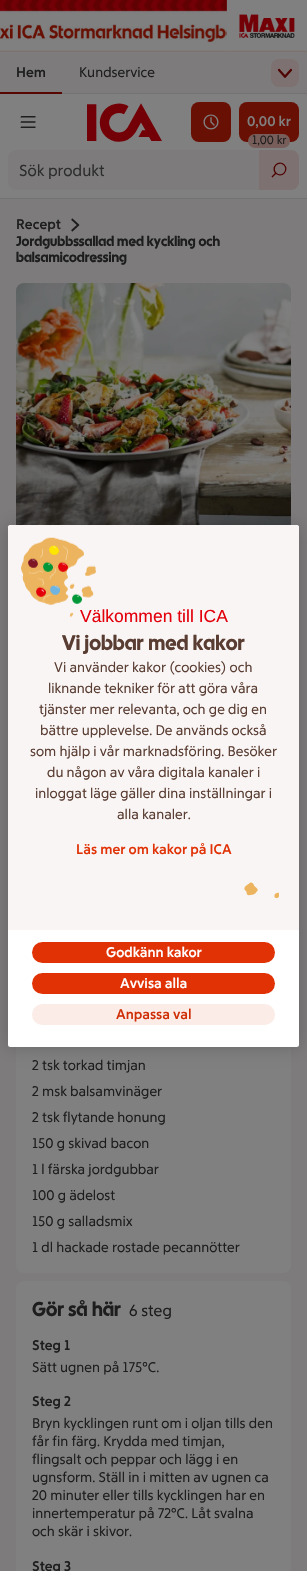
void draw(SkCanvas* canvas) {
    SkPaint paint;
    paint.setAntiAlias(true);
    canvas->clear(0xFF7D7B7B);
    canvas->drawImageRect(SkImages::DeferredFromEncodedData(SkData::MakeFromFileName("img1.png")), SkRect::MakeXYWH(0, 0, 227, 52), SkSamplingOptions());
    canvas->drawImageRect(SkImages::DeferredFromEncodedData(SkData::MakeFromFileName("img2.png")), SkRect::MakeXYWH(227, 0, 80, 52), SkSamplingOptions());
    SkFont font1(fontMgr->matchFamilyStyle("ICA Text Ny", SkFontStyle::Bold()), 14);
    font1.setSubpixel(true);
    paint.setColor(0xFF1D1D1D);
    canvas->drawString("Hem", 16, 77, font1, paint);
    paint.setColor(0xFF590601);
    canvas->drawRect(SkRect::MakeXYWH(0, 92, 62, 2), paint);
    SkFont font2(fontMgr->matchFamilyStyle("ICA Text Ny", SkFontStyle::Normal()), 14);
    font2.setSubpixel(true);
    paint.setColor(0xFF1D1D1D);
    canvas->drawString("Kundservice", 79, 77, font2, paint);
    paint.setColor(0xFF7D7271);
    canvas->drawRoundRect(SkRect::MakeXYWH(271, 59, 28, 28), 8, 8, paint);
    canvas->drawImageRect(SkImages::DeferredFromEncodedData(SkData::MakeFromFileName("img3.png")), SkRect::MakeXYWH(277, 68, 16, 10), SkSamplingOptions());
    paint.setColor(0xFF727272);
    canvas->drawRect(SkRect::MakeXYWH(62, 93, 245, 1), paint);
    canvas->drawRect(SkRect::MakeXYWH(0, 198, 307, 1), paint);
    paint.setColor(0xFF808080);
    canvas->drawRect(SkRect::MakeXYWH(0, 94, 307, 104), paint);
    canvas->drawImageRect(SkImages::DeferredFromEncodedData(SkData::MakeFromFileName("img4.png")), SkRect::MakeXYWH(87, 103, 75, 39), SkSamplingOptions());
    paint.setColor(0xFF681003);
    canvas->drawRoundRect(SkRect::MakeXYWH(191, 102, 40, 40), 8, 8, paint);
    canvas->drawImageRect(SkImages::DeferredFromEncodedData(SkData::MakeFromFileName("img5.png")), SkRect::MakeXYWH(203, 114, 16, 16), SkSamplingOptions());
    canvas->drawRoundRect(SkRect::MakeXYWH(239, 102, 60, 40), 8, 8, paint);
    paint.setColor(0xFF808080);
    canvas->drawString("0,00 kr", 247, 126, font1, paint);
    paint.setColor(0xFF785E5A);
    canvas->drawRoundRect(SkRect::MakeXYWH(248, 134, 42, 14), 7, 7, paint);
    SkFont font3(fontMgr->matchFamilyStyle("ICA Text Ny", SkFontStyle::Normal()), 12);
    font3.setSubpixel(true);
    paint.setColor(0xFF1D1D1D);
    canvas->drawString("1,00 kr", 252, 144, font3, paint);
    paint.setColor(0xFF7D7B7B);
    canvas->drawPath(SkPathBuilder().moveTo(16, 150).lineTo(259, 150).lineTo(259, 190).lineTo(16, 190).cubicTo(11.5f, 190, 8, 186.5f, 8, 182).lineTo(8, 158).cubicTo(8, 153.5f, 11.5f, 150, 16, 150).close().detach(), paint);
    SkFont font4(fontMgr->matchFamilyStyle("ICA Text Ny", SkFontStyle::Normal()), 16);
    font4.setSubpixel(true);
    paint.setColor(0xFF2C2C2C);
    canvas->drawString("Sök produkt", 19, 176, font4, paint);
    paint.setColor(0xFF7D7271);
    canvas->drawPath(SkPathBuilder().moveTo(259, 150).lineTo(291, 150).cubicTo(295.5f, 150, 299, 153.5f, 299, 158).lineTo(299, 182).cubicTo(299, 186.5f, 295.5f, 190, 291, 190).lineTo(259, 190).close().detach(), paint);
    canvas->drawImageRect(SkImages::DeferredFromEncodedData(SkData::MakeFromFileName("img6.png")), SkRect::MakeXYWH(271, 162, 16, 16), SkSamplingOptions());
    canvas->drawImageRect(SkImages::DeferredFromEncodedData(SkData::MakeFromFileName("img7.png")), SkRect::MakeXYWH(20, 116, 16, 12), SkSamplingOptions());
    paint.setColor(0xFF1D1D1D);
    canvas->drawString("Recept", 16, 229, font1, paint);
    canvas->drawImageRect(SkImages::DeferredFromEncodedData(SkData::MakeFromFileName("img8.png")), SkRect::MakeXYWH(71, 218, 9, 14), SkSamplingOptions());
    SkFont font5(fontMgr->matchFamilyStyle("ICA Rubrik", SkFontStyle::Bold()), 14);
    font5.setSubpixel(true);
    canvas->drawString("Jordgubbssallad med kyckling och", 16, 246, font5, paint);
    canvas->drawString("balsamicodressing", 16, 262, font5, paint);
    canvas->drawImageRect(SkImages::DeferredFromEncodedData(SkData::MakeFromFileName("img9.png")), SkRect::MakeXYWH(16, 283, 275, 242), SkSamplingOptions());
    paint.setColor(0xFF808080);
    canvas->drawRoundRect(SkRect::MakeXYWH(16, 948, 275, 325), 8, 8, paint);
    paint.setColor(0xFF1D1D1D);
    canvas->drawString("2 tsk torkad timjan", 32, 1070, font2, paint);
    canvas->drawString("2 msk balsamvinäger", 32, 1096, font2, paint);
    canvas->drawString("2 tsk flytande honung", 32, 1122, font2, paint);
    canvas->drawString("150 g skivad bacon", 32, 1148, font2, paint);
    canvas->drawString("1 l färska jordgubbar", 32, 1174, font2, paint);
    canvas->drawString("100 g ädelost", 32, 1200, font2, paint);
    canvas->drawString("150 g salladsmix", 32, 1226, font2, paint);
    canvas->drawString("1 dl hackade rostade pecannötter", 32, 1252, font2, paint);
    paint.setColor(0xFF808080);
    canvas->drawRoundRect(SkRect::MakeXYWH(16, 1281, 275, 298), 8, 8, paint);
    SkFont font6(fontMgr->matchFamilyStyle("ICA Rubrik", SkFontStyle::Bold()), 20);
    font6.setSubpixel(true);
    paint.setColor(0xFF1D1D1D);
    canvas->drawString("Gör så här", 32, 1316, font6, paint);
    canvas->drawString("6 steg", 129, 1316, font4, paint);
    canvas->drawString("Steg 1", 32, 1350, font1, paint);
    canvas->drawString("Sätt ugnen på 175°C.", 32, 1372, font2, paint);
    canvas->drawString("Steg 2", 32, 1406, font1, paint);
    canvas->drawString("Bryn kycklingen runt om i oljan tills den", 32, 1428, font2, paint);
    canvas->drawString("får fin färg. Krydda med timjan,", 32, 1446, font2, paint);
    canvas->drawString("flingsalt och peppar och lägg i en", 32, 1464, font2, paint);
    canvas->drawString("ugnsform. Ställ in i mitten av ugnen ca", 32, 1482, font2, paint);
    canvas->drawString("20 minuter eller tills kycklingen har en", 32, 1500, font2, paint);
    canvas->drawString("innertemperatur på 72°C. Låt svalna", 32, 1518, font2, paint);
    canvas->drawString("och skär i skivor.", 32, 1536, font2, paint);
    canvas->drawString("Steg 3", 32, 1571, font1, paint);
    paint.setColor(0x33000000);
    paint.setMaskFilter(SkMaskFilter::MakeBlur(kNormal_SkBlurStyle, 9));
    canvas->drawRoundRect(SkRect::MakeXYWH(8, 525, 291, 522), 2.5f, 2.5f, paint);
    paint.setMaskFilter(nullptr);
    paint.setColor(0xFFFFFFFF);
    canvas->drawRoundRect(SkRect::MakeXYWH(8, 525, 291, 522), 2.5f, 2.5f, paint);
    paint.setColor(0xFFF9F5F5);
    canvas->drawPath(SkPathBuilder().moveTo(10.5f, 525).lineTo(296.5f, 525).cubicTo(298, 525, 299, 526, 299, 527.5f).lineTo(299, 930).lineTo(8, 930).lineTo(8, 527.5f).cubicTo(8, 526, 9, 525, 10.5f, 525).close().detach(), paint);
    SkFont font7(fontMgr->matchFamilyStyle("Liberation Sans", SkFontStyle::Normal()), 17.5f);
    font7.setSubpixel(true);
    paint.setColor(0xFFE3000B);
    canvas->drawString("Välkommen till ICA", 80, 622, font7, paint);
    canvas->drawImageRect(SkImages::DeferredFromEncodedData(SkData::MakeFromFileName("img10.png")), SkRect::MakeXYWH(21, 537, 75, 80), SkSamplingOptions());
    SkFont font8(fontMgr->matchFamilyStyle("ICA Rubrik", SkFontStyle::Bold()), 21);
    font8.setSubpixel(true);
    paint.setColor(0xFF593D32);
    canvas->drawString("Vi jobbar med kakor", 62, 650, font8, paint);
    canvas->drawString("Vi använder kakor (cookies) och", 54, 672, font2, paint);
    canvas->drawString("liknande tekniker för att göra våra", 48, 693, font2, paint);
    canvas->drawString("tjänster mer relevanta, och ge dig en", 39, 714, font2, paint);
    canvas->drawString("bättre upplevelse. De används också", 40, 735, font2, paint);
    canvas->drawString("som hjälp i vår marknadsföring. Besöker", 30, 756, font2, paint);
    canvas->drawString("du någon av våra digitala kanaler i", 47, 777, font2, paint);
    canvas->drawString("inloggat läge gäller dina inställningar i", 35, 798, font2, paint);
    canvas->drawString("alla kanaler.", 117, 819, font2, paint);
    paint.setColor(0xFFE13205);
    canvas->drawString("Läs mer om kakor på ICA", 76, 854, font1, paint);
    canvas->drawImageRect(SkImages::DeferredFromEncodedData(SkData::MakeFromFileName("img11.png")), SkRect::MakeXYWH(244, 882, 35, 17), SkSamplingOptions());
    canvas->drawRoundRect(SkRect::MakeXYWH(32, 942, 243, 21), 10.5f, 10.5f, paint);
    paint.setColor(0xFFFFFFFF);
    canvas->drawString("Godkänn kakor", 106, 957, font1, paint);
    paint.setColor(0xFFE13205);
    canvas->drawRoundRect(SkRect::MakeXYWH(32, 973, 243, 21), 10.5f, 10.5f, paint);
    paint.setColor(0xFFFFFFFF);
    canvas->drawString("Avvisa alla", 120, 988, font1, paint);
    paint.setColor(0xFFFCECE7);
    canvas->drawRoundRect(SkRect::MakeXYWH(32, 1004, 243, 21), 10.5f, 10.5f, paint);
    paint.setColor(0xFFCF2E05);
    canvas->drawString("Anpassa val", 116, 1019, font1, paint);
}
